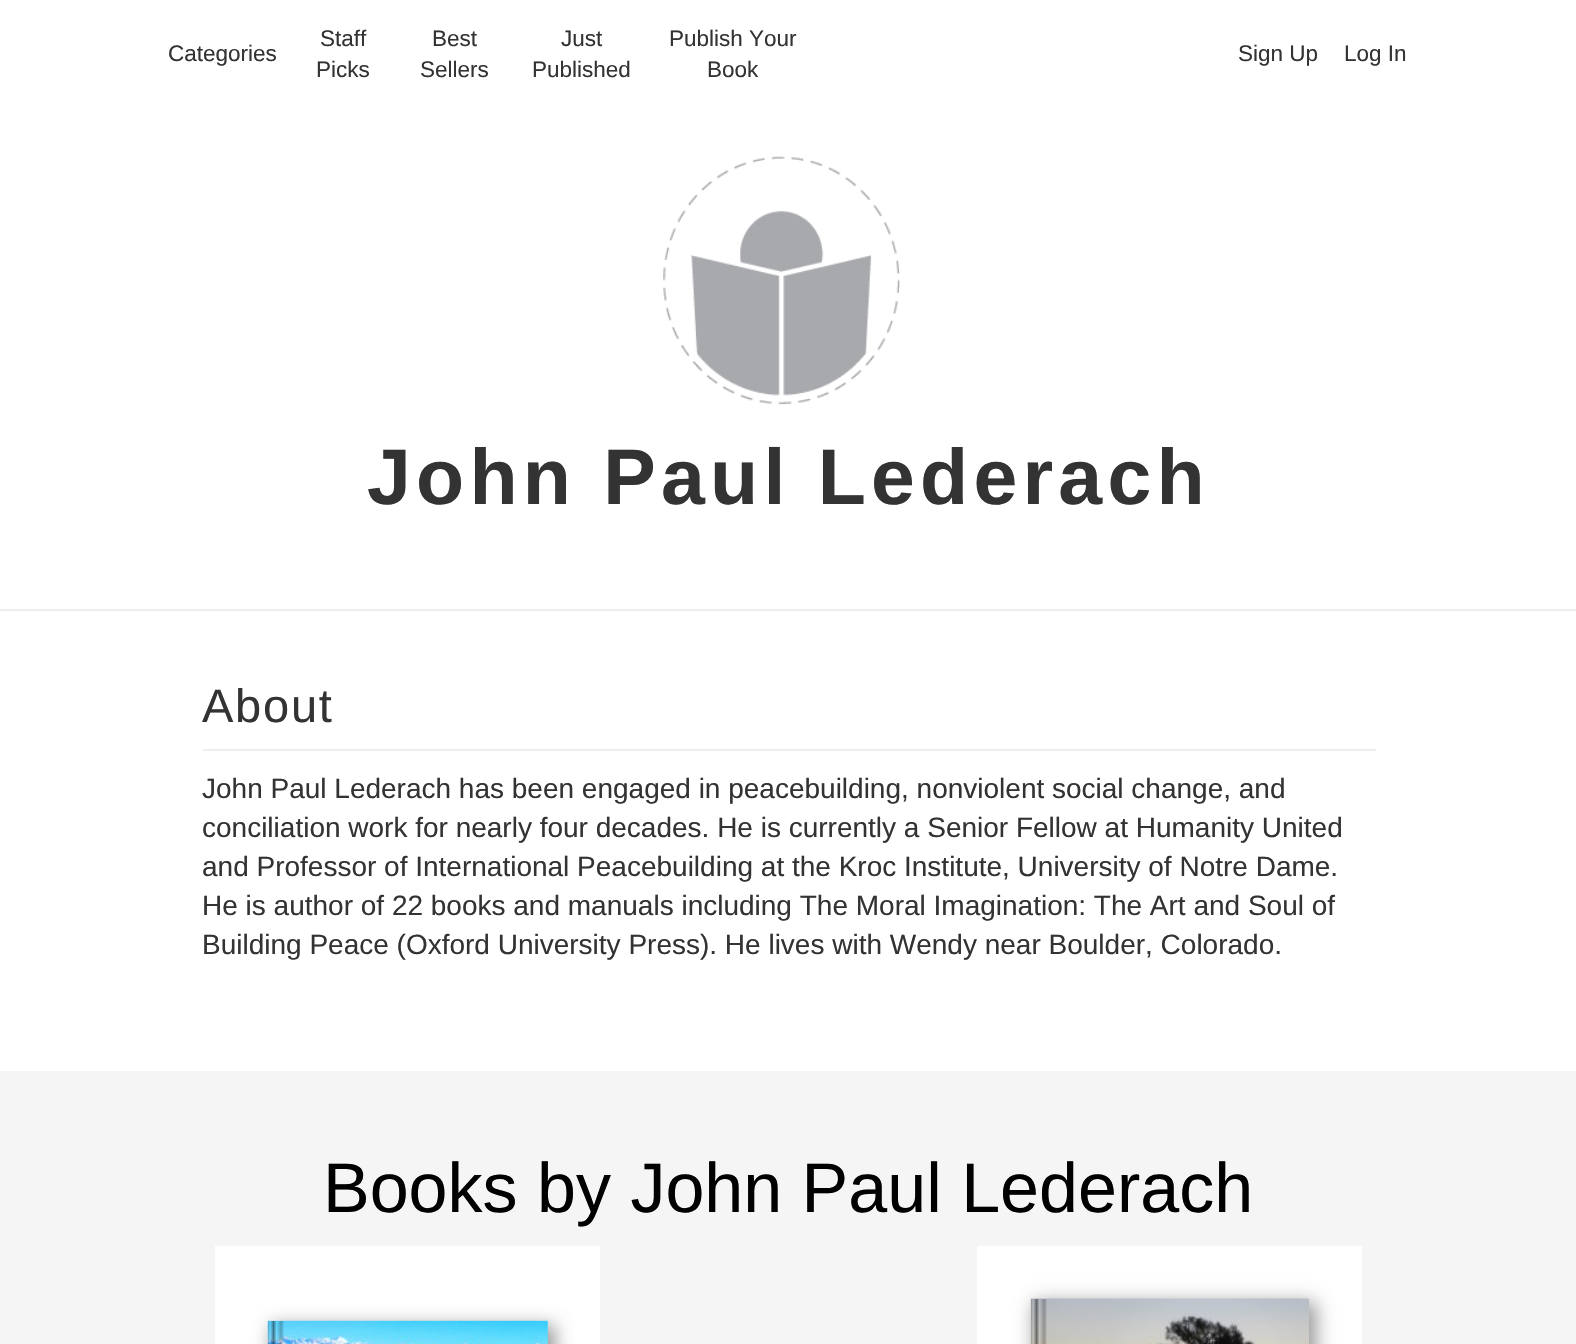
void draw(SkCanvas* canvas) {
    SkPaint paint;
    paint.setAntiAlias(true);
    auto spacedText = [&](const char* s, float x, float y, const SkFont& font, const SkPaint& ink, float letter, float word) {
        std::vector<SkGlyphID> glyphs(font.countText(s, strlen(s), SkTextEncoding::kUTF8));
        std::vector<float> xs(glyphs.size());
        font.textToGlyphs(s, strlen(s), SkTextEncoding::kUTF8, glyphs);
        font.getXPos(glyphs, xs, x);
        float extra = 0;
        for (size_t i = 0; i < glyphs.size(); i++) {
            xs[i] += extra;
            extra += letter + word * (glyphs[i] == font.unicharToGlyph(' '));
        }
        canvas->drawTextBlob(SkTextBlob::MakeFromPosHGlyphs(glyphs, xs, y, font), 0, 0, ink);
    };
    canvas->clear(0xFFFFFFFF);
    SkFont font1(fontMgr->matchFamilyStyle("Liberation Sans", SkFontStyle::Normal()), 22.5f);
    font1.setSubpixel(true);
    paint.setColor(0xFF333333);
    canvas->drawString("Categories", 168, 61, font1, paint);
    canvas->drawString("Staff", 320, 46, font1, paint);
    canvas->drawString("Picks", 316, 77, font1, paint);
    canvas->drawString("Best", 432, 46, font1, paint);
    canvas->drawString("Sellers", 420, 77, font1, paint);
    canvas->drawString("Just", 561, 46, font1, paint);
    canvas->drawString("Published", 532, 77, font1, paint);
    canvas->drawString("Publish Your", 669, 46, font1, paint);
    canvas->drawString("Book", 707, 77, font1, paint);
    canvas->drawString("Sign Up", 1238, 61, font1, paint);
    canvas->drawString("Log In", 1344, 61, font1, paint);
    canvas->drawImageRect(SkImages::DeferredFromEncodedData(SkData::MakeFromFileName("img1.png")), SkRect::MakeXYWH(663, 156, 238, 249), SkSamplingOptions());
    SkFont font2(fontMgr->matchFamilyStyle("Liberation Sans", SkFontStyle::Bold()), 78.75f);
    font2.setSubpixel(true);
    spacedText("John Paul Lederach", 367, 504, font2, paint, 5.25f, 0);
    paint.setColor(0xFFEEEEEE);
    canvas->drawRect(SkRect::MakeXYWH(0, 609, 1576, 2), paint);
    SkFont font3(fontMgr->matchFamilyStyle("Liberation Sans", SkFontStyle::Normal()), 47);
    font3.setSubpixel(true);
    paint.setColor(0xFF333333);
    spacedText("About", 202, 722, font3, paint, 1.75f, 0);
    paint.setColor(0xFFEEEEEE);
    canvas->drawRect(SkRect::MakeXYWH(203, 749, 1173, 2), paint);
    SkFont font4(fontMgr->matchFamilyStyle("Liberation Sans", SkFontStyle::Normal()), 28);
    font4.setSubpixel(true);
    paint.setColor(0xFF333333);
    canvas->drawString("John Paul Lederach has been engaged in peacebuilding, nonviolent social change, and", 202, 798, font4, paint);
    canvas->drawString("conciliation work for nearly four decades. He is currently a Senior Fellow at Humanity United", 202, 837, font4, paint);
    canvas->drawString("and Professor of International Peacebuilding at the Kroc Institute, University of Notre Dame.", 202, 876, font4, paint);
    canvas->drawString("He is author of 22 books and manuals including The Moral Imagination: The Art and Soul of", 202, 915, font4, paint);
    canvas->drawString("Building Peace (Oxford University Press). He lives with Wendy near Boulder, Colorado.", 202, 954, font4, paint);
    paint.setColor(0xFFF5F5F5);
    canvas->drawRect(SkRect::MakeXYWH(0, 1071, 1576, 273), paint);
    SkFont font5(fontMgr->matchFamilyStyle("Liberation Sans", SkFontStyle::Normal()), 70);
    font5.setSubpixel(true);
    paint.setColor(0xFF000000);
    canvas->drawString("Books by John Paul Lederach", 323, 1212, font5, paint);
    paint.setColor(0xFFFFFFFF);
    canvas->drawRect(SkRect::MakeXYWH(215, 1246, 385, 98), paint);
    paint.setColor(0xFF999999);
    paint.setMaskFilter(SkMaskFilter::MakeBlur(kNormal_SkBlurStyle, 9));
    canvas->drawRect(SkRect::MakeXYWH(271, 1325, 284, 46), paint);
    paint.setMaskFilter(nullptr);
    canvas->drawImageRect(SkImages::DeferredFromEncodedData(SkData::MakeFromFileName("img2.png")), SkRect::MakeXYWH(267, 1320, 281, 24), SkSamplingOptions());
    paint.setColor(0xFFFFFFFF);
    canvas->drawRect(SkRect::MakeXYWH(977, 1246, 385, 98), paint);
    paint.setColor(0xFF999999);
    paint.setMaskFilter(SkMaskFilter::MakeBlur(kNormal_SkBlurStyle, 9));
    canvas->drawRect(SkRect::MakeXYWH(1034, 1302, 282, 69), paint);
    paint.setMaskFilter(nullptr);
    canvas->drawImageRect(SkImages::DeferredFromEncodedData(SkData::MakeFromFileName("img3.png")), SkRect::MakeXYWH(1030, 1298, 279, 46), SkSamplingOptions());
}
